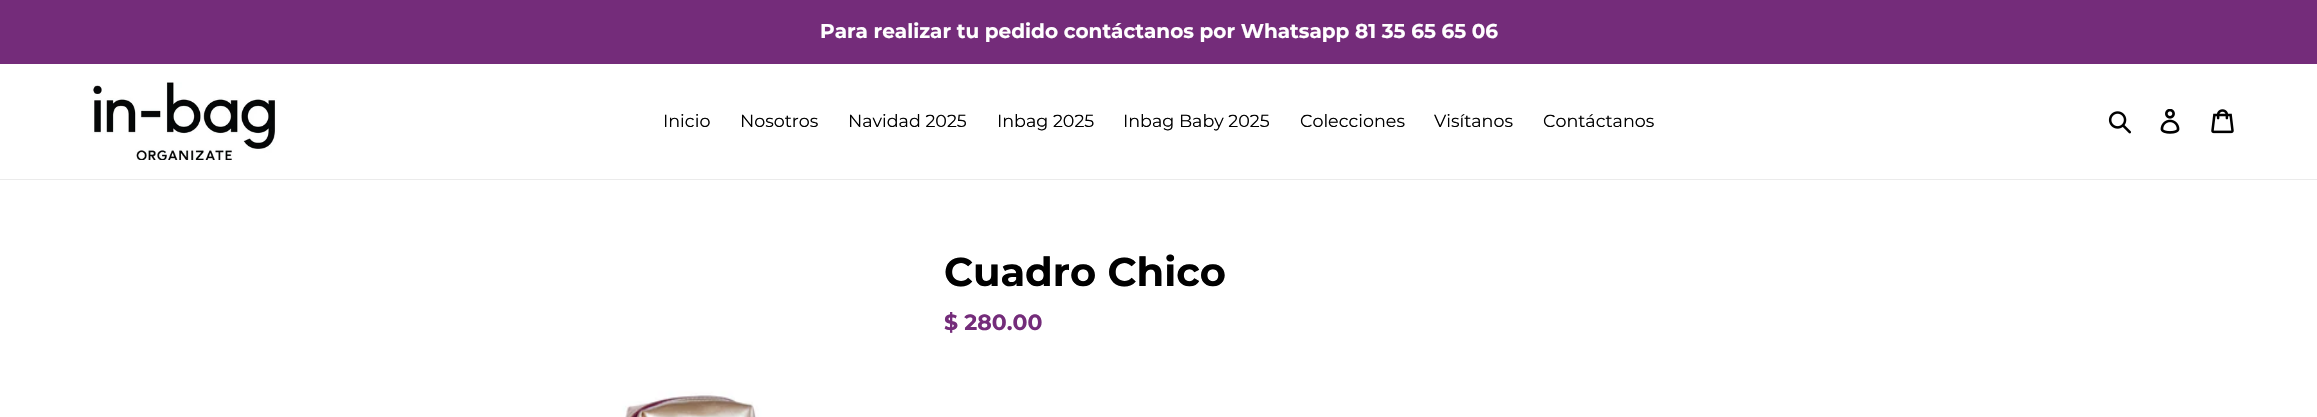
void draw(SkCanvas* canvas) {
    SkPaint paint;
    paint.setAntiAlias(true);
    canvas->clear(0xFFFFFFFF);
    paint.setColor(0xFF742C7A);
    canvas->drawRect(SkRect::MakeXYWH(0, 0, 2317, 64), paint);
    SkFont font1(fontMgr->matchFamilyStyle("Montserrat", SkFontStyle::Bold()), 20);
    font1.setSubpixel(true);
    paint.setColor(0xFFFFFFFF);
    canvas->drawString("Para realizar tu pedido contáctanos por Whatsapp 81 35 65 65 06", 820, 38, font1, paint);
    paint.setColor(0xFFEBEBEB);
    canvas->drawRect(SkRect::MakeXYWH(0, 179, 2317, 1), paint);
    canvas->drawImageRect(SkImages::DeferredFromEncodedData(SkData::MakeFromFileName("img1.png")), SkRect::MakeXYWH(69, 82, 231, 78), SkSamplingOptions());
    SkFont font2(fontMgr->matchFamilyStyle("Montserrat", SkFontStyle::Normal()), 17.5f);
    font2.setSubpixel(true);
    paint.setColor(0xFF000000);
    canvas->drawString("Inicio", 663, 127, font2, paint);
    canvas->drawString("Nosotros", 740, 127, font2, paint);
    canvas->drawString("Navidad 2025", 848, 127, font2, paint);
    canvas->drawString("Inbag 2025", 997, 127, font2, paint);
    canvas->drawString("Inbag Baby 2025", 1123, 127, font2, paint);
    canvas->drawString("Colecciones", 1300, 127, font2, paint);
    canvas->drawString("Visítanos", 1434, 127, font2, paint);
    canvas->drawString("Contáctanos", 1543, 127, font2, paint);
    canvas->drawImageRect(SkImages::DeferredFromEncodedData(SkData::MakeFromFileName("img2.png")), SkRect::MakeXYWH(2108, 111, 23, 23), SkSamplingOptions());
    canvas->drawImageRect(SkImages::DeferredFromEncodedData(SkData::MakeFromFileName("img3.png")), SkRect::MakeXYWH(2160, 109, 20, 25), SkSamplingOptions());
    canvas->drawImageRect(SkImages::DeferredFromEncodedData(SkData::MakeFromFileName("img4.png")), SkRect::MakeXYWH(2211, 109, 23, 25), SkSamplingOptions());
    canvas->drawImageRect(SkImages::DeferredFromEncodedData(SkData::MakeFromFileName("img5.png")), SkRect::MakeXYWH(478, 249, 428, 168), SkSamplingOptions());
    SkFont font3(fontMgr->matchFamilyStyle("Montserrat", SkFontStyle::Bold()), 40);
    font3.setSubpixel(true);
    canvas->drawString("Cuadro Chico", 944, 286, font3, paint);
    SkFont font4(fontMgr->matchFamilyStyle("Montserrat", SkFontStyle::Bold()), 22);
    font4.setSubpixel(true);
    paint.setColor(0xFF742C7A);
    canvas->drawString("$ 280.00", 944, 330, font4, paint);
}
